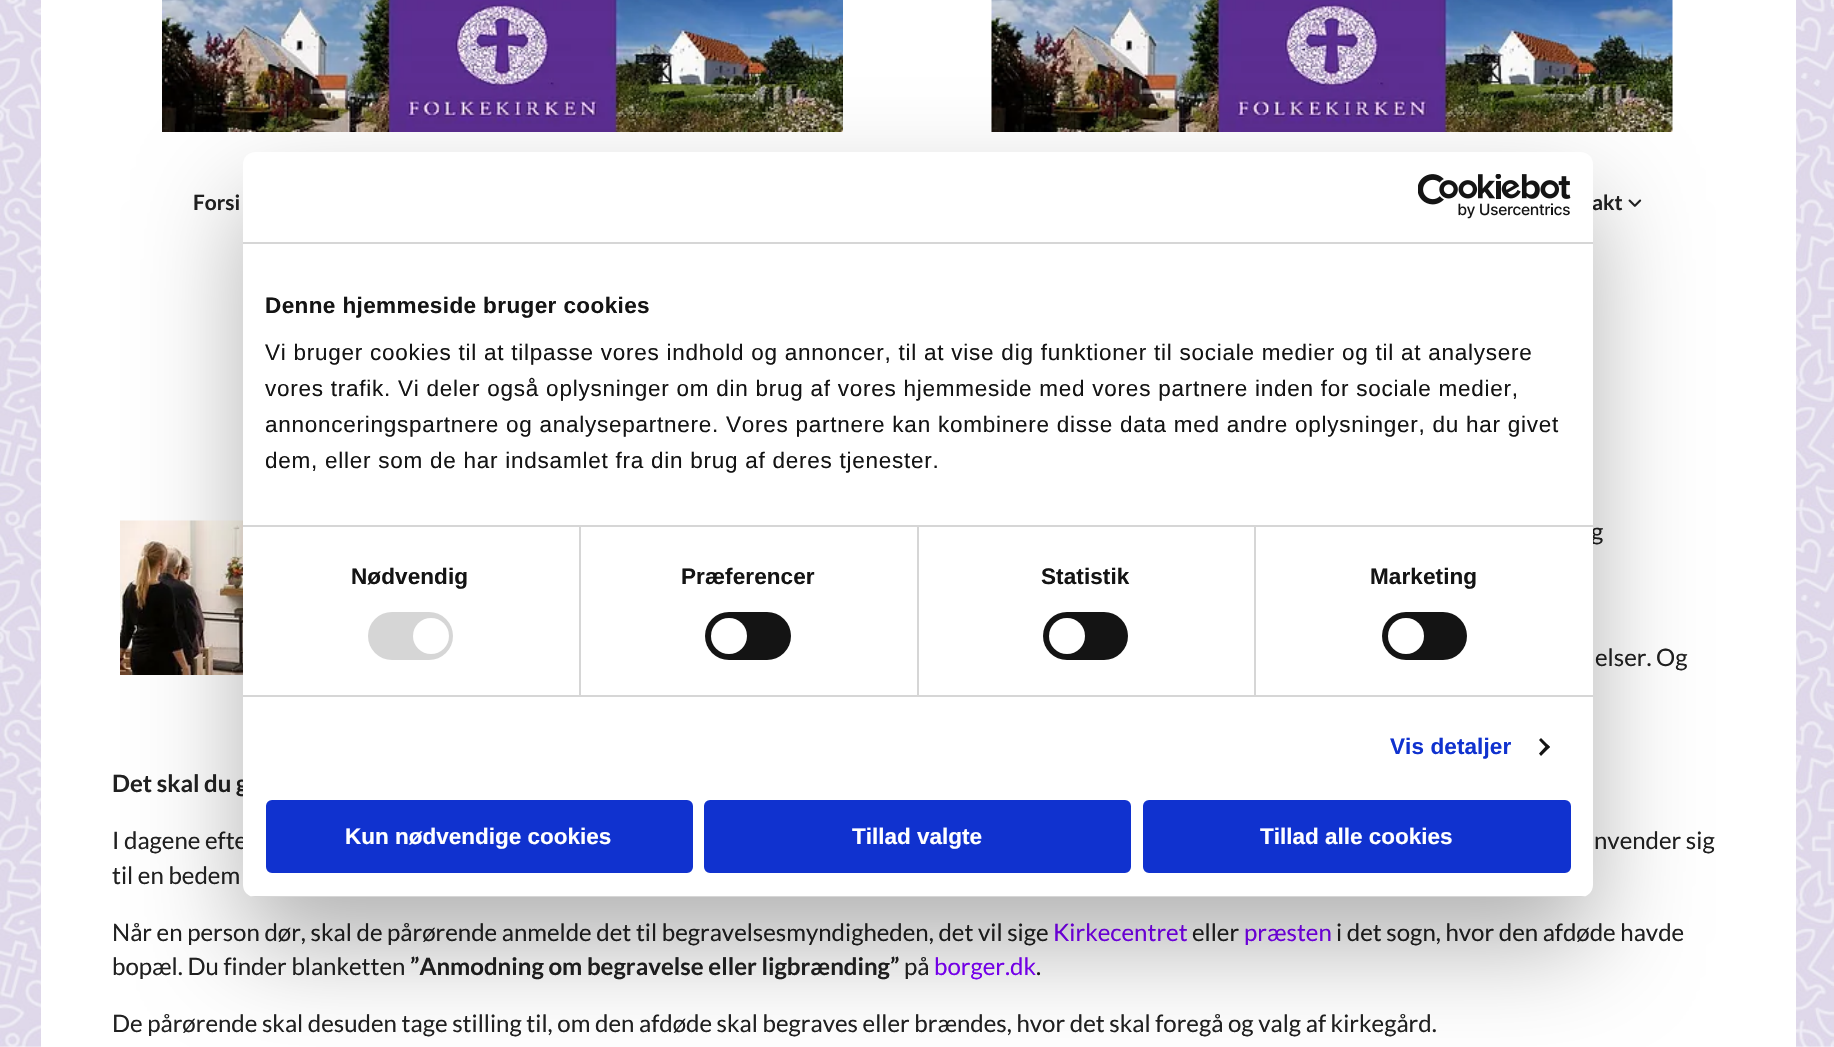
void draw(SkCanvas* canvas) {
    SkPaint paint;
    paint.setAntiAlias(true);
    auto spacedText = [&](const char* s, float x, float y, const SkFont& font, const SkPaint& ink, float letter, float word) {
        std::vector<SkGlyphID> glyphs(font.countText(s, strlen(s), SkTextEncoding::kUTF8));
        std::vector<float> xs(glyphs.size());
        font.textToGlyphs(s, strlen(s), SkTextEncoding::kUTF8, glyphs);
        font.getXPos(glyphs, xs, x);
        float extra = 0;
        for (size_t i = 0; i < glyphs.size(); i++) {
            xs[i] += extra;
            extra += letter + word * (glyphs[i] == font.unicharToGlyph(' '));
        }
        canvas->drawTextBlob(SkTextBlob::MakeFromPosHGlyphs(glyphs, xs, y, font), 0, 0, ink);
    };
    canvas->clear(0xFFFFFFFF);
    canvas->drawImageRect(SkImages::DeferredFromEncodedData(SkData::MakeFromFileName("img1.png")), SkRect::MakeXYWH(0, 0, 1834, 1047), SkSamplingOptions());
    paint.setColor(0xFFFFFFFF);
    canvas->drawRect(SkRect::MakeXYWH(41, 0, 1755, 1047), paint);
    canvas->drawImageRect(SkImages::DeferredFromEncodedData(SkData::MakeFromFileName("img2.png")), SkRect::MakeXYWH(162, 0, 681, 132), SkSamplingOptions());
    canvas->drawImageRect(SkImages::DeferredFromEncodedData(SkData::MakeFromFileName("img3.png")), SkRect::MakeXYWH(991, 0, 682, 132), SkSamplingOptions());
    SkFont font1(fontMgr->matchFamilyStyle("Lato", SkFontStyle::Bold()), 21);
    font1.setSubpixel(true);
    paint.setColor(0xFF212121);
    canvas->drawString("Forsi", 193, 210, font1, paint);
    canvas->drawString("akt", 1592, 210, font1, paint);
    canvas->drawImageRect(SkImages::DeferredFromEncodedData(SkData::MakeFromFileName("img4.png")), SkRect::MakeXYWH(1628, 199, 14, 8), SkSamplingOptions());
    canvas->drawImageRect(SkImages::DeferredFromEncodedData(SkData::MakeFromFileName("img5.png")), SkRect::MakeXYWH(120, 520, 123, 155), SkSamplingOptions());
    SkFont font2(fontMgr->matchFamilyStyle("Lato", SkFontStyle::Normal()), 24);
    font2.setSubpixel(true);
    canvas->drawString("g", 1591, 540, font2, paint);
    canvas->drawString("elser. Og", 1595, 666, font2, paint);
    SkFont font3(fontMgr->matchFamilyStyle("Lato", SkFontStyle::Bold()), 24);
    font3.setSubpixel(true);
    canvas->drawString("Det skal du g", 112, 792, font3, paint);
    canvas->drawString("I dagene efte", 112, 849, font2, paint);
    canvas->drawString("nvender sig", 1594, 849, font2, paint);
    canvas->drawString("til en bedem", 112, 884, font2, paint);
    canvas->drawString("Når en person dør, skal de pårørende anmelde det til begravelsesmyndigheden, det vil sige", 112, 941, font2, paint);
    paint.setColor(0xFF7F00FF);
    canvas->drawString("Kirkecentret", 1053, 941, font2, paint);
    paint.setColor(0xFF212121);
    canvas->drawString("eller", 1192, 941, font2, paint);
    paint.setColor(0xFF7F00FF);
    canvas->drawString("præsten", 1244, 941, font2, paint);
    paint.setColor(0xFF212121);
    canvas->drawString("i det sogn, hvor den afdøde havde", 1336, 941, font2, paint);
    canvas->drawString("bopæl. Du finder blanketten", 112, 975, font2, paint);
    canvas->drawString("”Anmodning om begravelse eller ligbrænding”", 410, 975, font3, paint);
    canvas->drawString("på", 904, 975, font2, paint);
    paint.setColor(0xFF7F00FF);
    canvas->drawString("borger.dk", 934, 975, font2, paint);
    paint.setColor(0xFF212121);
    canvas->drawString(".", 1036, 975, font2, paint);
    canvas->drawString("De pårørende skal desuden tage stilling til, om den afdøde skal begraves eller brændes, hvor det skal foregå og valg af kirkegård.", 112, 1032, font2, paint);
    paint.setColor(0x4D000000);
    paint.setMaskFilter(SkMaskFilter::MakeBlur(kNormal_SkBlurStyle, 51));
    canvas->drawRoundRect(SkRect::MakeXYWH(243, 200, 1350, 745), 12, 12, paint);
    paint.setMaskFilter(nullptr);
    paint.setColor(0xFFFFFFFF);
    canvas->drawRoundRect(SkRect::MakeXYWH(243, 152, 1350, 745), 12, 12, paint);
    paint.setColor(0xFFD6D6D6);
    canvas->drawRect(SkRect::MakeXYWH(243, 242, 1350, 2), paint);
    canvas->drawImageRect(SkImages::DeferredFromEncodedData(SkData::MakeFromFileName("img6.png")), SkRect::MakeXYWH(1418, 174, 153, 45), SkSamplingOptions());
    canvas->drawRect(SkRect::MakeXYWH(243, 525, 1350, 2), paint);
    SkFont font4(fontMgr->matchFamilyStyle("Liberation Sans", SkFontStyle::Bold()), 22.5f);
    font4.setSubpixel(true);
    paint.setColor(0xFF141414);
    spacedText("Denne hjemmeside bruger cookies", 265, 313, font4, paint, 0.4f, 0);
    SkFont font5(fontMgr->matchFamilyStyle("Liberation Sans", SkFontStyle::Normal()), 22.5f);
    font5.setSubpixel(true);
    spacedText("Vi bruger cookies til at tilpasse vores indhold og annoncer, til at vise dig funktioner til sociale medier og til at analysere", 265, 360, font5, paint, 0.75f, 0);
    spacedText("vores trafik. Vi deler også oplysninger om din brug af vores hjemmeside med vores partnere inden for sociale medier,", 265, 396, font5, paint, 0.75f, 0);
    spacedText("annonceringspartnere og analysepartnere. Vores partnere kan kombinere disse data med andre oplysninger, du har givet", 265, 432, font5, paint, 0.75f, 0);
    spacedText("dem, eller som de har indsamlet fra din brug af deres tjenester.", 265, 468, font5, paint, 0.75f, 0);
    paint.setColor(0xFFD6D6D6);
    canvas->drawRect(SkRect::MakeXYWH(243, 695, 1350, 2), paint);
    canvas->drawRect(SkRect::MakeXYWH(579, 527, 2, 168), paint);
    paint.setColor(0xFF141414);
    spacedText("Nødvendig", 351, 584, font4, paint, 0.1f, 0);
    paint.setColor(0xFFD6D6D6);
    canvas->drawRoundRect(SkRect::MakeXYWH(368, 612, 85, 48), 24, 24, paint);
    paint.setColor(0xFFFFFFFF);
    canvas->drawCircle(431, 636, 18, paint);
    paint.setColor(0xFFD6D6D6);
    canvas->drawRect(SkRect::MakeXYWH(917, 527, 2, 168), paint);
    paint.setColor(0xFF141414);
    spacedText("Præferencer", 681, 584, font4, paint, 0.1f, 0);
    canvas->drawRoundRect(SkRect::MakeXYWH(705, 612, 86, 48), 24, 24, paint);
    paint.setColor(0xFFFFFFFF);
    canvas->drawCircle(729, 636, 18, paint);
    paint.setColor(0xFFD6D6D6);
    canvas->drawRect(SkRect::MakeXYWH(1254, 527, 2, 168), paint);
    paint.setColor(0xFF141414);
    spacedText("Statistik", 1041, 584, font4, paint, 0.1f, 0);
    canvas->drawRoundRect(SkRect::MakeXYWH(1043, 612, 85, 48), 24, 24, paint);
    paint.setColor(0xFFFFFFFF);
    canvas->drawCircle(1067, 636, 18, paint);
    paint.setColor(0xFF141414);
    spacedText("Marketing", 1370, 584, font4, paint, 0.1f, 0);
    canvas->drawRoundRect(SkRect::MakeXYWH(1382, 612, 85, 48), 24, 24, paint);
    paint.setColor(0xFFFFFFFF);
    canvas->drawCircle(1406, 636, 18, paint);
    paint.setColor(0xFF1032CF);
    spacedText("Vis detaljer", 1390, 754, font4, paint, 0.1f, 0);
    paint.setColor(0xFF141414);
    canvas->drawPath(SkPathBuilder().moveTo(1541, 738).lineTo(1550, 747).lineTo(1547.5f, 749).lineTo(1539, 740).close().detach(), paint);
    canvas->drawPath(SkPathBuilder().moveTo(1547.5f, 744.5f).lineTo(1550, 747).lineTo(1541, 756).lineTo(1539, 753.5f).close().detach(), paint);
    canvas->save();
    canvas->clipPath(SkPathBuilder().moveTo(255, 152).lineTo(1581, 152).cubicTo(1587.5f, 152, 1593, 157.5f, 1593, 164).lineTo(1593, 885).cubicTo(1593, 891.5f, 1587.5f, 897, 1581, 897).lineTo(255, 897).cubicTo(248.5f, 897, 243, 891.5f, 243, 885).lineTo(243, 164).cubicTo(243, 157.5f, 248.5f, 152, 255, 152).close().detach(), true);
    paint.setColor(0xFFD6D6D6);
    canvas->drawRect(SkRect::MakeXYWH(243, 896, 1350, 1), paint);
    canvas->restore();
    paint.setColor(0xFF1032CF);
    canvas->drawRoundRect(SkRect::MakeXYWH(267.5f, 801.5f, 424, 70), 4.5f, 4.5f, paint);
    paint.setStyle(SkPaint::kStroke_Style);
    paint.setStrokeWidth(3);
    canvas->drawRoundRect(SkRect::MakeXYWH(267.5f, 801.5f, 424, 70), 4.5f, 4.5f, paint);
    paint.setStyle(SkPaint::kFill_Style);
    paint.setColor(0xFFFFFFFF);
    canvas->drawString("Kun nødvendige cookies", 345, 844, font4, paint);
    paint.setColor(0xFF1032CF);
    canvas->drawRoundRect(SkRect::MakeXYWH(705.5f, 801.5f, 424, 70), 4.5f, 4.5f, paint);
    paint.setStyle(SkPaint::kStroke_Style);
    canvas->drawRoundRect(SkRect::MakeXYWH(705.5f, 801.5f, 424, 70), 4.5f, 4.5f, paint);
    paint.setStyle(SkPaint::kFill_Style);
    paint.setColor(0xFFFFFFFF);
    canvas->drawString("Tillad valgte", 852, 844, font4, paint);
    paint.setColor(0xFF1032CF);
    canvas->drawRoundRect(SkRect::MakeXYWH(1144.5f, 801.5f, 425, 70), 4.5f, 4.5f, paint);
    paint.setStyle(SkPaint::kStroke_Style);
    canvas->drawRoundRect(SkRect::MakeXYWH(1144.5f, 801.5f, 425, 70), 4.5f, 4.5f, paint);
    paint.setStyle(SkPaint::kFill_Style);
    paint.setColor(0xFFFFFFFF);
    canvas->drawString("Tillad alle cookies", 1260, 844, font4, paint);
}
